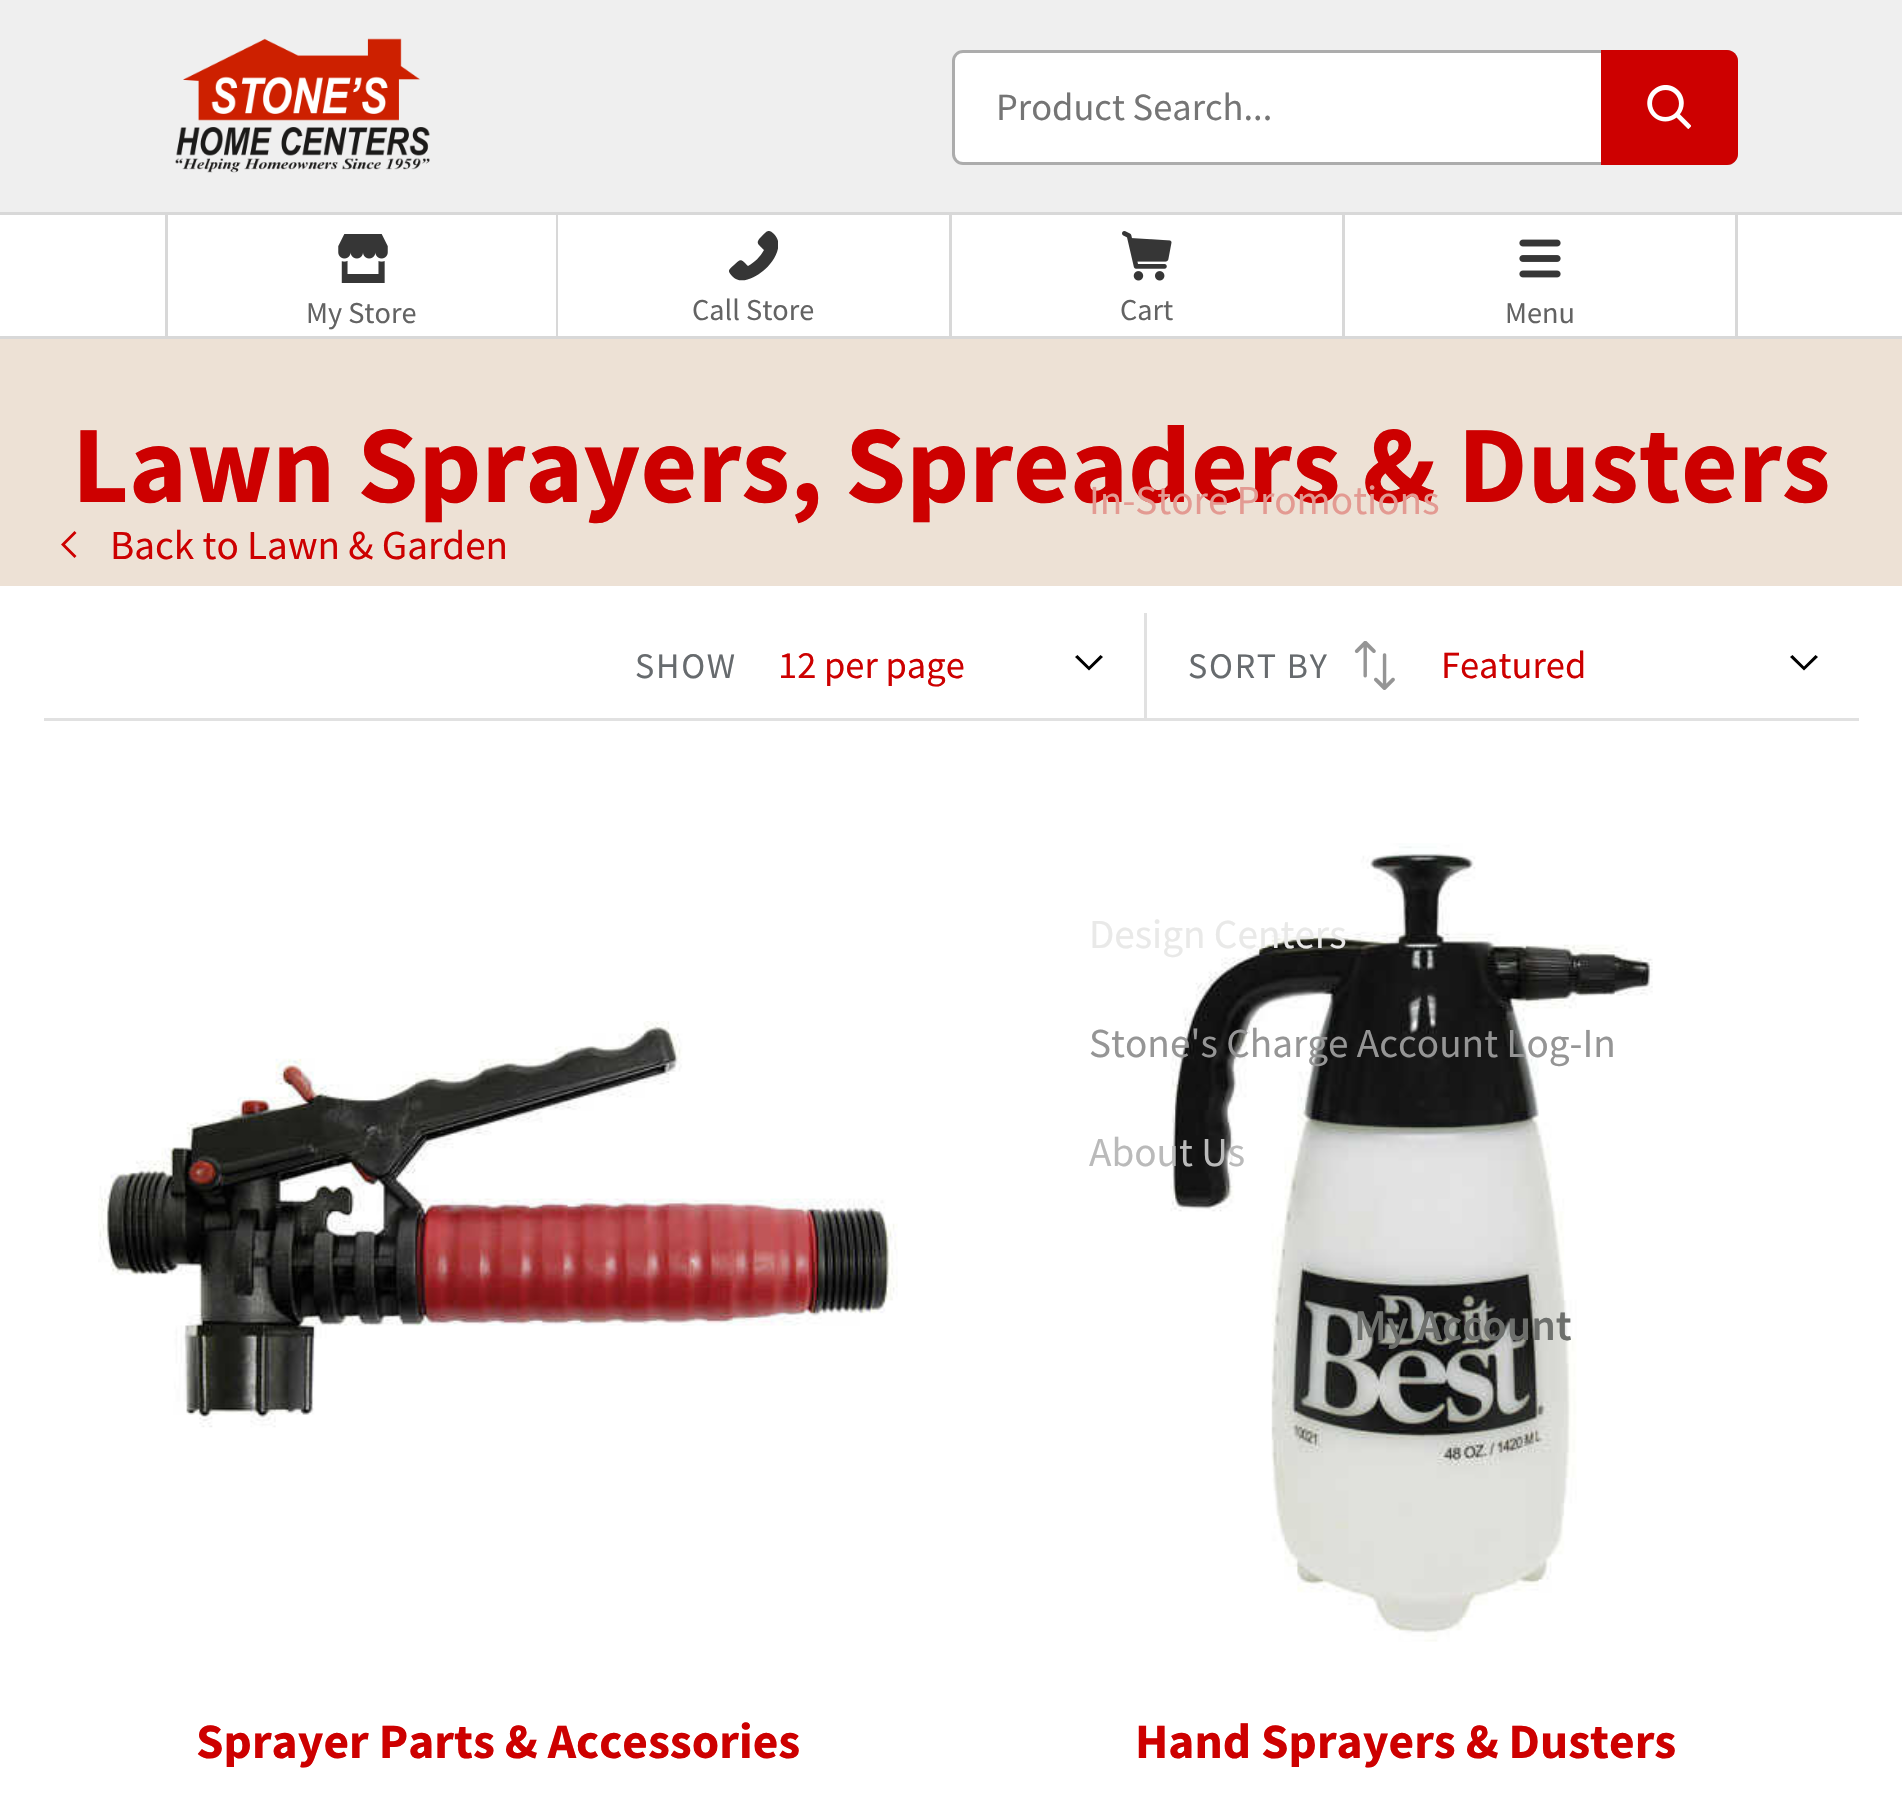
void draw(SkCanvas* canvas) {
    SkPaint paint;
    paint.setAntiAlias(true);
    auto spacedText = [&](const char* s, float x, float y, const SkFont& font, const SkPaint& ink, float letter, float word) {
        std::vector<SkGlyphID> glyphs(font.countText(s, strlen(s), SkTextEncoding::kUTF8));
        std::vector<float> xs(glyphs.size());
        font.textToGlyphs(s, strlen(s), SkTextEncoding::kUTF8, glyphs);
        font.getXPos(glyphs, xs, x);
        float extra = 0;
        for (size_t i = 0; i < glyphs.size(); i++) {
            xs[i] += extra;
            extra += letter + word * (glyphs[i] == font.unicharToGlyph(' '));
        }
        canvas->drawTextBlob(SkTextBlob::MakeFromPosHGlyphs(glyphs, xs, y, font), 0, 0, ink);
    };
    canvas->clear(0xFFFFFFFF);
    paint.setColor(0xFFEFEFEF);
    canvas->drawRect(SkRect::MakeXYWH(0, 0, 1902, 212), paint);
    canvas->drawImageRect(SkImages::DeferredFromEncodedData(SkData::MakeFromFileName("img1.png")), SkRect::MakeXYWH(175, 38, 255, 135), SkSamplingOptions());
    paint.setColor(0xFFFFFFFF);
    canvas->drawRoundRect(SkRect::MakeXYWH(953.5f, 51.5f, 783, 112), 9.5f, 9.5f, paint);
    paint.setStyle(SkPaint::kStroke_Style);
    paint.setStrokeWidth(3);
    paint.setColor(0xFFACACAC);
    canvas->drawRoundRect(SkRect::MakeXYWH(953.5f, 51.5f, 783, 112), 9.5f, 9.5f, paint);
    SkFont font1(fontMgr->matchFamilyStyle("Source Sans Pro", SkFontStyle::Normal()), 38.5f);
    font1.setSubpixel(true);
    paint.setStyle(SkPaint::kFill_Style);
    paint.setColor(0xFF757575);
    canvas->drawString("Product Search...", 996, 120, font1, paint);
    paint.setColor(0xFFCD0000);
    canvas->drawPath(SkPathBuilder().moveTo(1601, 50).lineTo(1727, 50).cubicTo(1733, 50, 1738, 55, 1738, 61).lineTo(1738, 154).cubicTo(1738, 160, 1733, 165, 1727, 165).lineTo(1601, 165).close().detach(), paint);
    canvas->drawImageRect(SkImages::DeferredFromEncodedData(SkData::MakeFromFileName("img2.png")), SkRect::MakeXYWH(1647, 85, 44, 44), SkSamplingOptions());
    paint.setColor(0xFFD8D8D8);
    canvas->drawRect(SkRect::MakeXYWH(0, 212, 1902, 3), paint);
    canvas->drawRect(SkRect::MakeXYWH(0, 336, 1902, 3), paint);
    canvas->drawRect(SkRect::MakeXYWH(556, 215, 2, 123), paint);
    canvas->drawRect(SkRect::MakeXYWH(165, 215, 3, 123), paint);
    canvas->drawImageRect(SkImages::DeferredFromEncodedData(SkData::MakeFromFileName("img3.png")), SkRect::MakeXYWH(338, 234, 50, 49), SkSamplingOptions());
    SkFont font2(fontMgr->matchFamilyStyle("Source Sans Pro", SkFontStyle::Normal()), 30.25f);
    font2.setSubpixel(true);
    paint.setColor(0xFF636363);
    canvas->drawString("My Store", 306, 323, font2, paint);
    paint.setColor(0xFFD8D8D8);
    canvas->drawRect(SkRect::MakeXYWH(949, 215, 3, 123), paint);
    canvas->save();
    canvas->clipRect(SkRect::MakeXYWH(729, 231, 49, 50));
    paint.setColor(0xFF363636);
    canvas->drawPath(SkPathBuilder().moveTo(733, 277).cubicTo(727, 271, 728, 270, 734, 265).cubicTo(741, 258, 741, 259, 748, 266).cubicTo(755, 262, 760, 257, 764, 250).cubicTo(758, 244, 755, 243, 761, 237).cubicTo(766, 232, 768, 228, 774, 234).cubicTo(785, 245, 773, 263, 763, 271).cubicTo(756, 277, 741, 285, 733, 277).close().detach(), paint);
    canvas->restore();
    paint.setColor(0xFF636363);
    canvas->drawString("Call Store", 692, 320, font2, paint);
    paint.setColor(0xFFD8D8D8);
    canvas->drawRect(SkRect::MakeXYWH(1342, 215, 3, 123), paint);
    canvas->drawImageRect(SkImages::DeferredFromEncodedData(SkData::MakeFromFileName("img4.png")), SkRect::MakeXYWH(1122, 231, 50, 50), SkSamplingOptions());
    paint.setColor(0xFF636363);
    canvas->drawString("Cart", 1120, 320, font2, paint);
    paint.setColor(0xFFD8D8D8);
    canvas->drawRect(SkRect::MakeXYWH(1735, 215, 3, 123), paint);
    canvas->drawImageRect(SkImages::DeferredFromEncodedData(SkData::MakeFromFileName("img5.png")), SkRect::MakeXYWH(1519, 239, 42, 39), SkSamplingOptions());
    paint.setColor(0xFF636363);
    canvas->drawString("Menu", 1505, 323, font2, paint);
    paint.setColor(0xFFEDE1D5);
    canvas->drawRect(SkRect::MakeXYWH(0, 339, 1902, 247), paint);
    SkFont font3(fontMgr->matchFamilyStyle("Source Sans Pro", SkFontStyle::Bold()), 110);
    font3.setSubpixel(true);
    paint.setColor(0xFFCD0000);
    canvas->drawString("Lawn Sprayers, Spreaders & Dusters", 72, 502, font3, paint);
    SkFont font4(fontMgr->matchFamilyStyle("Source Sans Pro", SkFontStyle::Normal()), 41.25f);
    font4.setSubpixel(true);
    paint.setColor(0xFFE39A92);
    canvas->drawString("In-Store Promotions", 1089, 514, font4, paint);
    canvas->drawImageRect(SkImages::DeferredFromEncodedData(SkData::MakeFromFileName("img8.png")), SkRect::MakeXYWH(1170, 843, 483, 799), SkSamplingOptions());
    paint.setColor(0xFFE9E9E8);
    canvas->drawString("Design Centers", 1089, 948, font4, paint);
    paint.setColor(0xFF959595);
    canvas->drawString("Stone's Charge Account Log-In", 1089, 1057, font4, paint);
    paint.setColor(0xFFBABABA);
    canvas->drawString("About Us", 1089, 1166, font4, paint);
    SkFont font5(fontMgr->matchFamilyStyle("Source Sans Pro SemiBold", SkFontStyle(600, SkFontStyle::kNormal_Width, SkFontStyle::kUpright_Slant)), 44);
    font5.setSubpixel(true);
    paint.setColor(0xFF6D6F6C);
    canvas->drawString("My Account", 1354, 1340, font5, paint);
    paint.setColor(0xFFCD0000);
    canvas->drawPath(SkPathBuilder().moveTo(74.5f, 531).lineTo(76.5f, 533).lineTo(65, 544.5f).lineTo(76.5f, 556).lineTo(74.5f, 558).lineTo(61, 544.5f).close().detach(), paint);
    canvas->drawString("Back to Lawn & Garden", 110, 559, font4, paint);
    paint.setColor(0xFFE1E1E1);
    canvas->drawRect(SkRect::MakeXYWH(44, 718, 1815, 3), paint);
    SkFont font6(fontMgr->matchFamilyStyle("Source Sans Pro", SkFontStyle::Normal()), 36);
    font6.setSubpixel(true);
    paint.setColor(0xFF676B6E);
    spacedText("SHOW", 635, 678, font6, paint, 1.75f, 0);
    paint.setColor(0xFF000000);
    canvas->drawPath(SkPathBuilder().moveTo(1075, 657).lineTo(1077.5f, 655).lineTo(1089, 666.5f).lineTo(1100.5f, 655).lineTo(1103, 657).lineTo(1089, 670.5f).close().detach(), paint);
    paint.setColor(0xFFCD0000);
    canvas->drawString("12 per page", 778, 678, font1, paint);
    paint.setColor(0xFFE1E1E1);
    canvas->drawRect(SkRect::MakeXYWH(1144, 613, 3, 105), paint);
    paint.setColor(0xFF676B6E);
    spacedText("SORT BY", 1188, 678, font6, paint, 1.75f, 0);
    canvas->drawImageRect(SkImages::DeferredFromEncodedData(SkData::MakeFromFileName("img6.png")), SkRect::MakeXYWH(1354, 641, 41, 49), SkSamplingOptions());
    paint.setColor(0xFF000000);
    canvas->drawPath(SkPathBuilder().moveTo(1790, 657).lineTo(1792.5f, 655).lineTo(1804, 666.5f).lineTo(1815.5f, 655).lineTo(1818, 657).lineTo(1804, 670.5f).close().detach(), paint);
    paint.setColor(0xFFCD0000);
    canvas->drawString("Featured", 1441, 678, font1, paint);
    canvas->drawImageRect(SkImages::DeferredFromEncodedData(SkData::MakeFromFileName("img7.png")), SkRect::MakeXYWH(98, 1021, 800, 407), SkSamplingOptions());
    SkFont font7(fontMgr->matchFamilyStyle("Source Sans Pro", SkFontStyle::Bold()), 49.5f);
    font7.setSubpixel(true);
    canvas->drawString("Sprayer Parts & Accessories", 196, 1758, font7, paint);
    canvas->drawString("Hand Sprayers & Dusters", 1135, 1758, font7, paint);
}
